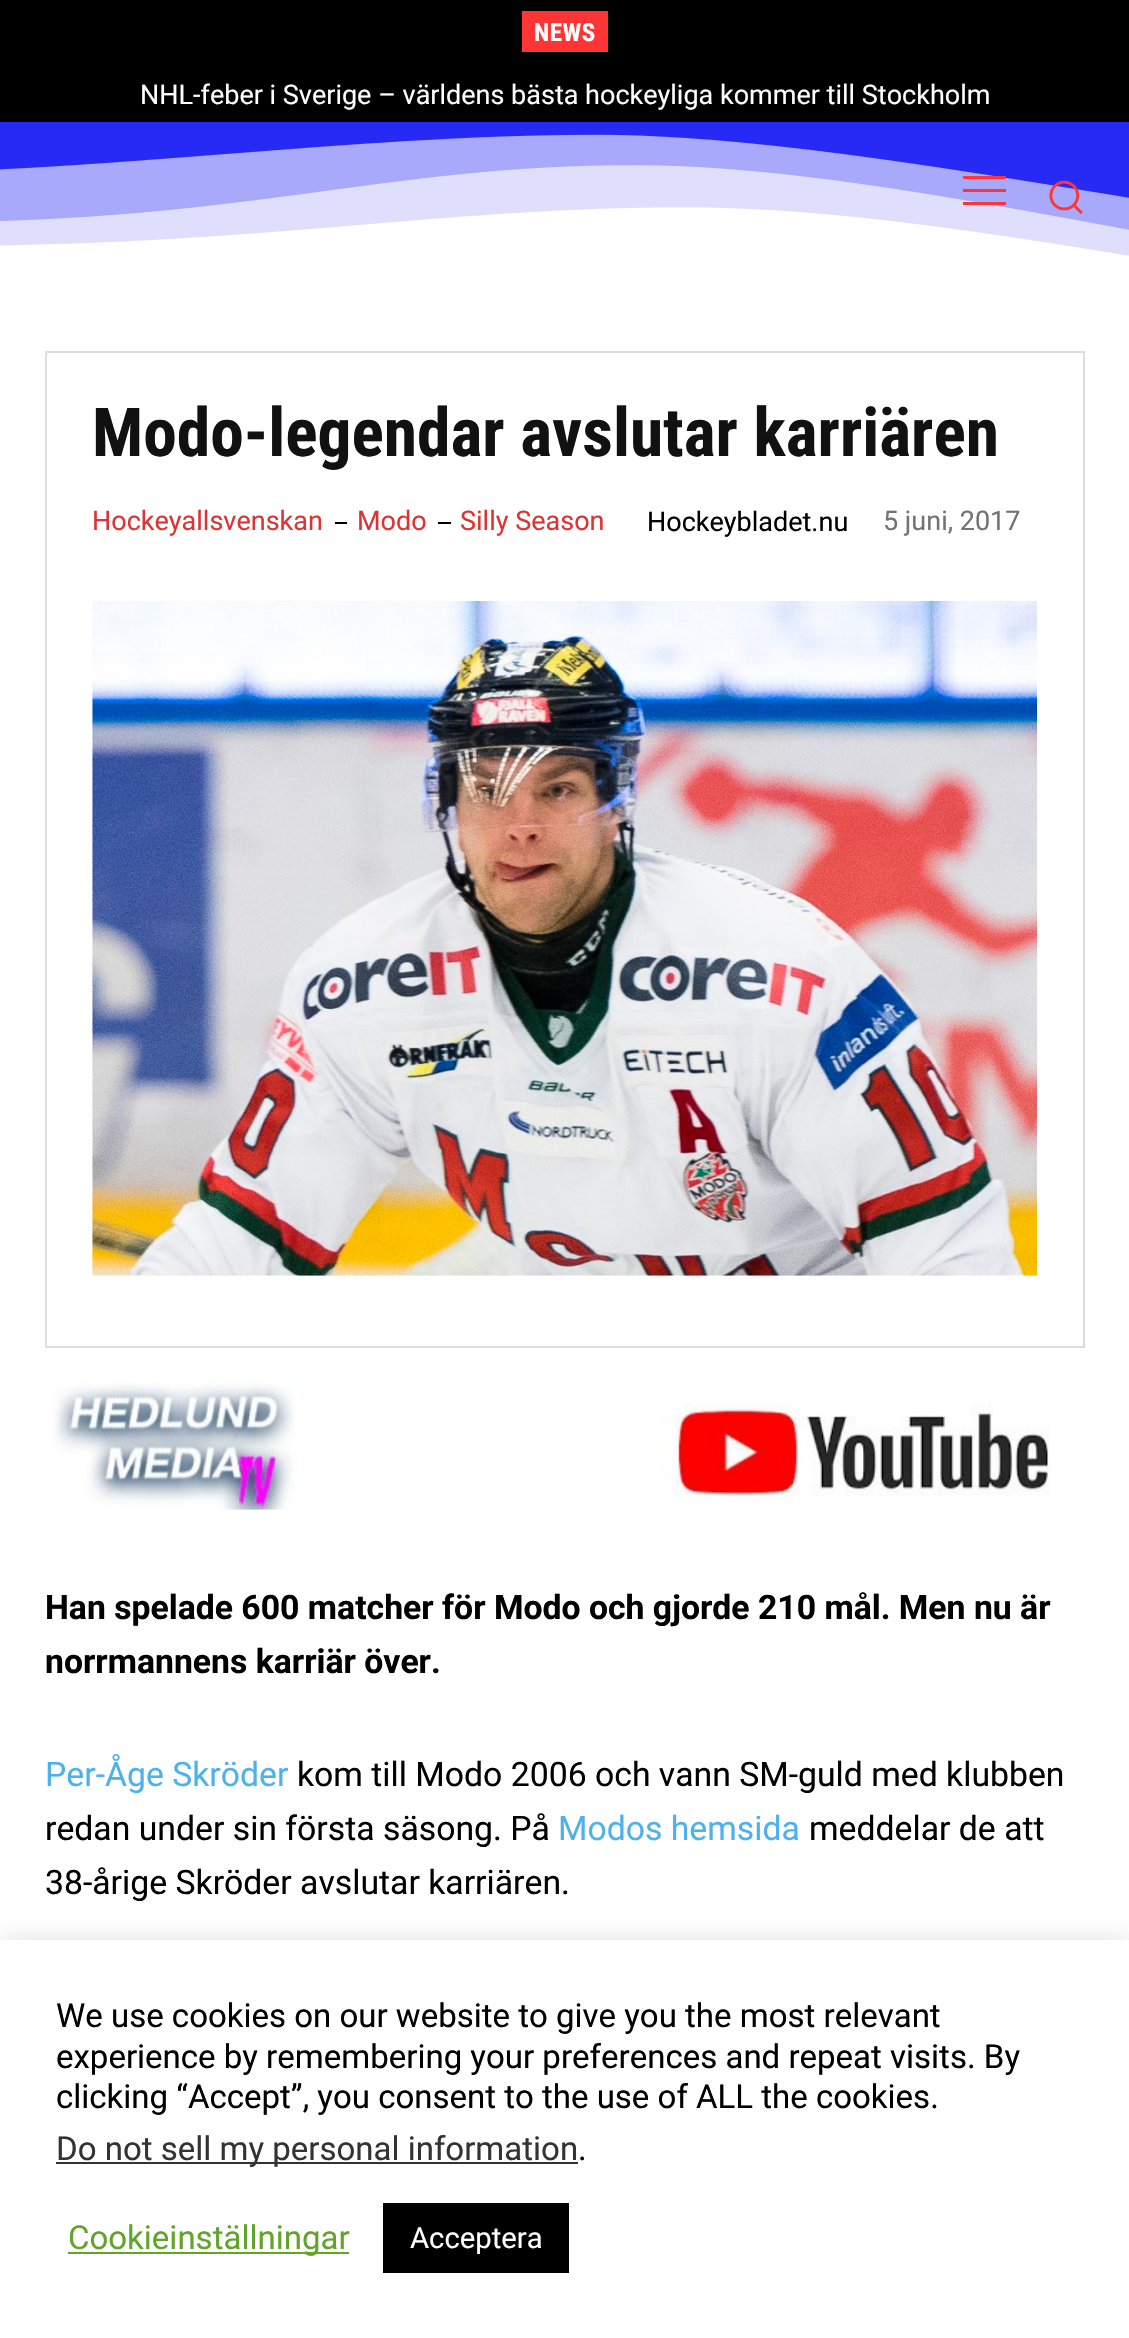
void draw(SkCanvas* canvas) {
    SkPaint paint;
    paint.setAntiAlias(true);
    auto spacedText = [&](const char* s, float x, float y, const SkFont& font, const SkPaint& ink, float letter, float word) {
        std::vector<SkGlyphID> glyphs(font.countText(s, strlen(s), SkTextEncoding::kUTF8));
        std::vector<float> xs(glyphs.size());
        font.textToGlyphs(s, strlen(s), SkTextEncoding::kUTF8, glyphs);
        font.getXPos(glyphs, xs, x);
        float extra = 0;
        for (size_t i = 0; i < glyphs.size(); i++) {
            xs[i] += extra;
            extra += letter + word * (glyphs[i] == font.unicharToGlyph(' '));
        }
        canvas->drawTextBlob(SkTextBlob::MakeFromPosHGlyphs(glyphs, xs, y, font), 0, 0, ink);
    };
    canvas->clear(0xFFFFFFFF);
    paint.setColor(0xFF000000);
    canvas->drawRect(SkRect::MakeXYWH(0, 0, 1129, 122), paint);
    paint.setColor(0xFFFF3535);
    canvas->drawRect(SkRect::MakeXYWH(522, 11, 86, 41), paint);
    SkFont font1(fontMgr->matchFamilyStyle("Roboto Condensed", SkFontStyle::Bold()), 25);
    font1.setSubpixel(true);
    paint.setColor(0xFFFFFFFF);
    spacedText("NEWS", 534, 41, font1, paint, 0.5f, 0);
    SkFont font2(fontMgr->matchFamilyStyle("Roboto", SkFontStyle::Normal()), 27);
    font2.setSubpixel(true);
    canvas->drawString("NHL-feber i Sverige – världens bästa hockeyliga kommer till Stockholm", 140, 104, font2, paint);
    canvas->drawImageRect(SkImages::DeferredFromEncodedData(SkData::MakeFromFileName("img1.png")), SkRect::MakeXYWH(0, 122, 1129, 134), SkSamplingOptions());
    paint.setColor(0xFFFF3535);
    canvas->drawPath(SkPathBuilder().moveTo(963, 189).lineTo(1006, 189).lineTo(1006, 192).lineTo(963, 192).close().moveTo(963, 176).lineTo(1006, 176).lineTo(1006, 179).lineTo(963, 179).close().moveTo(963, 202).lineTo(1006, 202).lineTo(1006, 205).lineTo(963, 205).close().detach(), paint);
    canvas->drawImageRect(SkImages::DeferredFromEncodedData(SkData::MakeFromFileName("img2.png")), SkRect::MakeXYWH(1049, 180, 34, 34), SkSamplingOptions());
    paint.setStyle(SkPaint::kStroke_Style);
    paint.setStrokeWidth(2);
    paint.setColor(0xFFDDDDDD);
    canvas->drawRect(SkRect::MakeXYWH(46, 352, 1038, 995), paint);
    SkFont font3(fontMgr->matchFamilyStyle("Roboto Condensed", SkFontStyle::Bold()), 67.5f);
    font3.setSubpixel(true);
    paint.setStyle(SkPaint::kFill_Style);
    paint.setColor(0xFF111111);
    canvas->drawString("Modo-legendar avslutar karriären", 92, 456, font3, paint);
    paint.setColor(0xFFDD3333);
    canvas->drawString("Hockeyallsvenskan", 92, 530, font2, paint);
    paint.setColor(0xFF000000);
    canvas->drawRect(SkRect::MakeXYWH(335, 522, 12, 2), paint);
    paint.setColor(0xFFDD3333);
    canvas->drawString("Modo", 357, 530, font2, paint);
    paint.setColor(0xFF000000);
    canvas->drawRect(SkRect::MakeXYWH(438, 522, 13, 2), paint);
    paint.setColor(0xFFDD3333);
    canvas->drawString("Silly Season", 460, 530, font2, paint);
    paint.setColor(0xFF000000);
    canvas->drawString("Hockeybladet.nu", 647, 531, font2, paint);
    paint.setColor(0xFF727277);
    canvas->drawString("5 juni, 2017", 883, 530, font2, paint);
    canvas->drawImageRect(SkImages::DeferredFromEncodedData(SkData::MakeFromFileName("img3.png")), SkRect::MakeXYWH(92, 600, 946, 676), SkSamplingOptions());
    canvas->drawImageRect(SkImages::DeferredFromEncodedData(SkData::MakeFromFileName("img4.png")), SkRect::MakeXYWH(53, 1382, 997, 128), SkSamplingOptions());
    SkFont font4(fontMgr->matchFamilyStyle("Roboto", SkFontStyle::Bold()), 33.75f);
    font4.setSubpixel(true);
    paint.setColor(0xFF000000);
    canvas->drawString("Han spelade 600 matcher för Modo och gjorde 210 mål. Men nu är", 45, 1619, font4, paint);
    canvas->drawString("norrmannens karriär över.", 45, 1673, font4, paint);
    SkFont font5(fontMgr->matchFamilyStyle("Roboto", SkFontStyle::Normal()), 33.75f);
    font5.setSubpixel(true);
    paint.setColor(0xFF4DB2EC);
    canvas->drawString("Per-Åge Skröder", 45, 1786, font5, paint);
    paint.setColor(0xFF000000);
    canvas->drawString("kom till Modo 2006 och vann SM-guld med klubben", 297, 1786, font5, paint);
    canvas->drawString("redan under sin första säsong. På", 45, 1840, font5, paint);
    paint.setColor(0xFF4DB2EC);
    canvas->drawString("Modos hemsida", 558, 1840, font5, paint);
    paint.setColor(0xFF000000);
    canvas->drawString("meddelar de att", 809, 1840, font5, paint);
    canvas->drawString("38-årige Skröder avslutar karriären.", 45, 1894, font5, paint);
    paint.setColor(0x4DACABAB);
    paint.setMaskFilter(SkMaskFilter::MakeBlur(kNormal_SkBlurStyle, 11));
    canvas->drawRect(SkRect::MakeXYWH(0, 1937, 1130, 401), paint);
    paint.setMaskFilter(nullptr);
    paint.setColor(0xFFFFFFFF);
    canvas->drawRect(SkRect::MakeXYWH(0, 1940, 1129, 398), paint);
    SkFont font6(fontMgr->matchFamilyStyle("Roboto", SkFontStyle::Normal()), 33);
    font6.setSubpixel(true);
    paint.setColor(0xFF000000);
    canvas->drawString("We use cookies on our website to give you the most relevant", 56, 2027, font6, paint);
    canvas->drawString("experience by remembering your preferences and repeat visits. By", 56, 2068, font6, paint);
    canvas->drawString("clicking “Accept”, you consent to the use of ALL the cookies.", 56, 2108, font6, paint);
    paint.setColor(0xFF333333);
    canvas->drawRect(SkRect::MakeXYWH(56, 2162, 522, 2), paint);
    canvas->drawString("Do not sell my personal information", 56, 2160, font6, paint);
    paint.setColor(0xFF000000);
    canvas->drawString(".", 578, 2160, font6, paint);
    paint.setColor(0xFF62A329);
    canvas->drawRect(SkRect::MakeXYWH(68, 2252, 281, 2), paint);
    canvas->drawString("Cookieinställningar", 68, 2249, font6, paint);
    paint.setColor(0xFF000000);
    canvas->drawRect(SkRect::MakeXYWH(383, 2203, 186, 70), paint);
    SkFont font7(fontMgr->matchFamilyStyle("Roboto", SkFontStyle::Normal()), 29.25f);
    font7.setSubpixel(true);
    paint.setColor(0xFFFFFFFF);
    canvas->drawString("Acceptera", 410, 2248, font7, paint);
}
